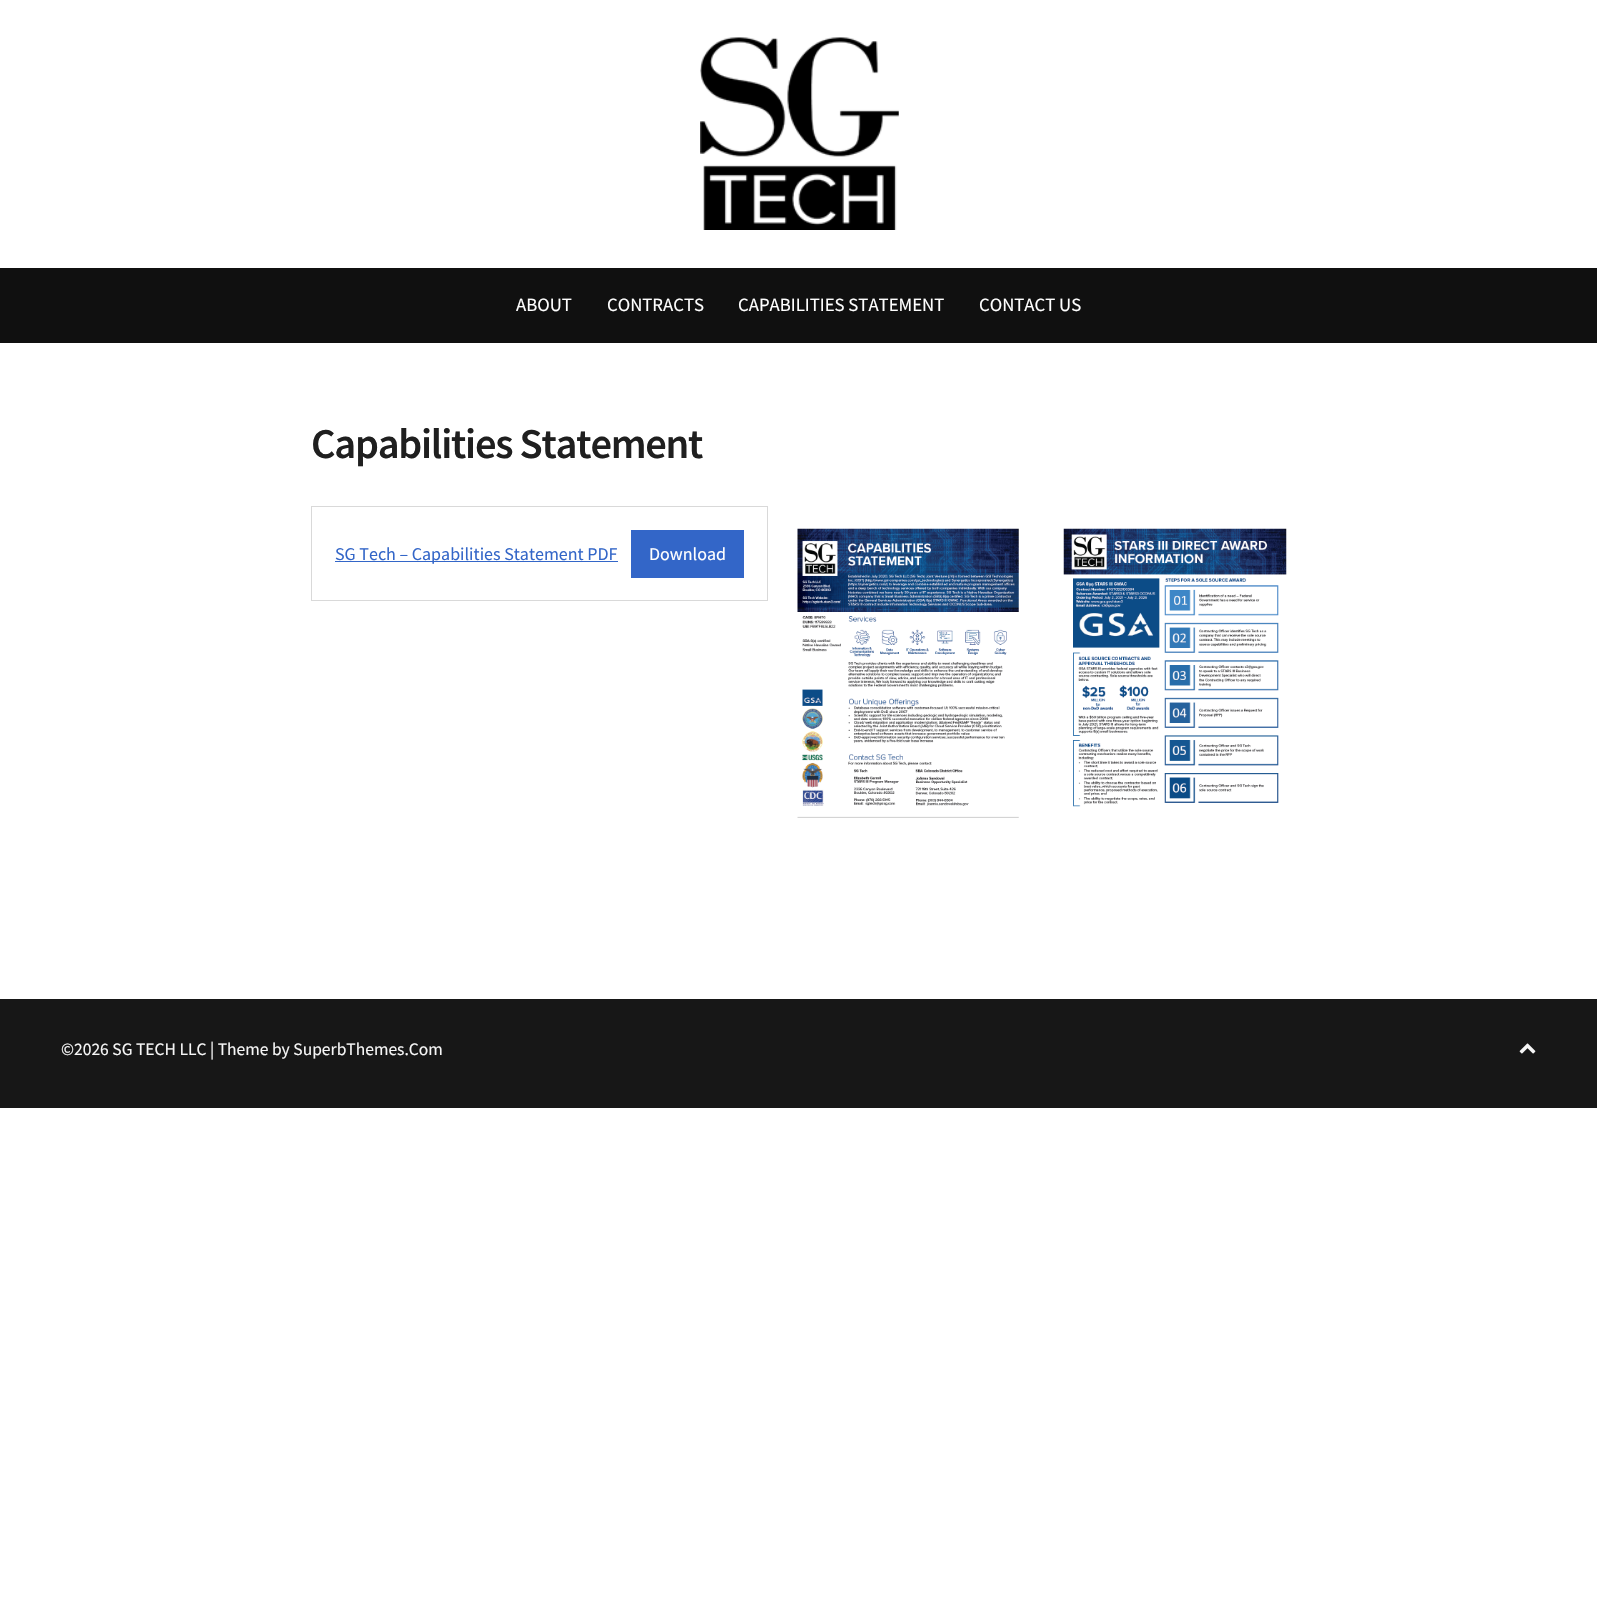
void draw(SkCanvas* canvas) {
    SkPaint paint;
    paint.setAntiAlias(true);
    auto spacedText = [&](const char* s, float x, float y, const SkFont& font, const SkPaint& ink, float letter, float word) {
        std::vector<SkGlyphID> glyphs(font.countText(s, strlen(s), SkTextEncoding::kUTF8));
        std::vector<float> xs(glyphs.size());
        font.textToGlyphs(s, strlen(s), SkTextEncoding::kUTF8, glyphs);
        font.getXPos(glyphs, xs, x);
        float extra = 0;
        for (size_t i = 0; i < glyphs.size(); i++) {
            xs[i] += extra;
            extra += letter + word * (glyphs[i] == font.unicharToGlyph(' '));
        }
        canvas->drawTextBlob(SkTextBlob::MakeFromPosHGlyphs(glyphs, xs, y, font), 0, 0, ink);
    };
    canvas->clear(0xFFFFFFFF);
    canvas->drawImageRect(SkImages::DeferredFromEncodedData(SkData::MakeFromFileName("img1.png")), SkRect::MakeXYWH(700, 37, 199, 193), SkSamplingOptions());
    paint.setColor(0xFF101010);
    canvas->drawRect(SkRect::MakeXYWH(0, 268, 1597, 75), paint);
    SkFont font1(fontMgr->matchFamilyStyle("Source Sans Pro", SkFontStyle::Normal()), 18.75f);
    font1.setSubpixel(true);
    paint.setColor(0xFFFFFFFF);
    canvas->drawString("ABOUT", 516, 311, font1, paint);
    canvas->drawString("CONTRACTS", 607, 311, font1, paint);
    canvas->drawString("CAPABILITIES STATEMENT", 738, 311, font1, paint);
    canvas->drawString("CONTACT US", 979, 311, font1, paint);
    SkFont font2(fontMgr->matchFamilyStyle("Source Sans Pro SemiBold", SkFontStyle(600, SkFontStyle::kNormal_Width, SkFontStyle::kUpright_Slant)), 42.5f);
    font2.setSubpixel(true);
    paint.setColor(0xFF1F1F1F);
    spacedText("Capabilities Statement", 311, 458, font2, paint, -1.25f, 0);
    paint.setStyle(SkPaint::kStroke_Style);
    paint.setStrokeWidth(1);
    paint.setColor(0xFFD9D9D9);
    canvas->drawRect(SkRect::MakeXYWH(311.5f, 506.5f, 456, 94), paint);
    paint.setStyle(SkPaint::kFill_Style);
    paint.setColor(0xFF3366C8);
    canvas->drawRect(SkRect::MakeXYWH(335, 561, 283, 1), paint);
    SkFont font3(fontMgr->matchFamilyStyle("Source Sans Pro", SkFontStyle::Normal()), 18);
    font3.setSubpixel(true);
    canvas->drawString("SG Tech – Capabilities Statement PDF", 335, 560, font3, paint);
    canvas->drawRect(SkRect::MakeXYWH(631, 530, 113, 48), paint);
    paint.setColor(0xFFFFFFFF);
    canvas->drawString("Download", 649, 560, font3, paint);
    canvas->drawImageRect(SkImages::DeferredFromEncodedData(SkData::MakeFromFileName("img2.png")), SkRect::MakeXYWH(797, 528, 222, 290), SkSamplingOptions());
    canvas->drawImageRect(SkImages::DeferredFromEncodedData(SkData::MakeFromFileName("img3.png")), SkRect::MakeXYWH(1063, 528, 224, 279), SkSamplingOptions());
    paint.setColor(0xFF171717);
    canvas->drawRect(SkRect::MakeXYWH(0, 999, 1597, 109), paint);
    SkFont font4(fontMgr->matchFamilyStyle("Source Sans Pro", SkFontStyle::Normal()), 17.5f);
    font4.setSubpixel(true);
    paint.setColor(0xFFF6F6F6);
    canvas->drawString("©2026 SG TECH LLC | Theme by SuperbThemes.Com", 61, 1055, font4, paint);
    canvas->drawImageRect(SkImages::DeferredFromEncodedData(SkData::MakeFromFileName("img4.png")), SkRect::MakeXYWH(1519, 1043, 17, 11), SkSamplingOptions());
}
